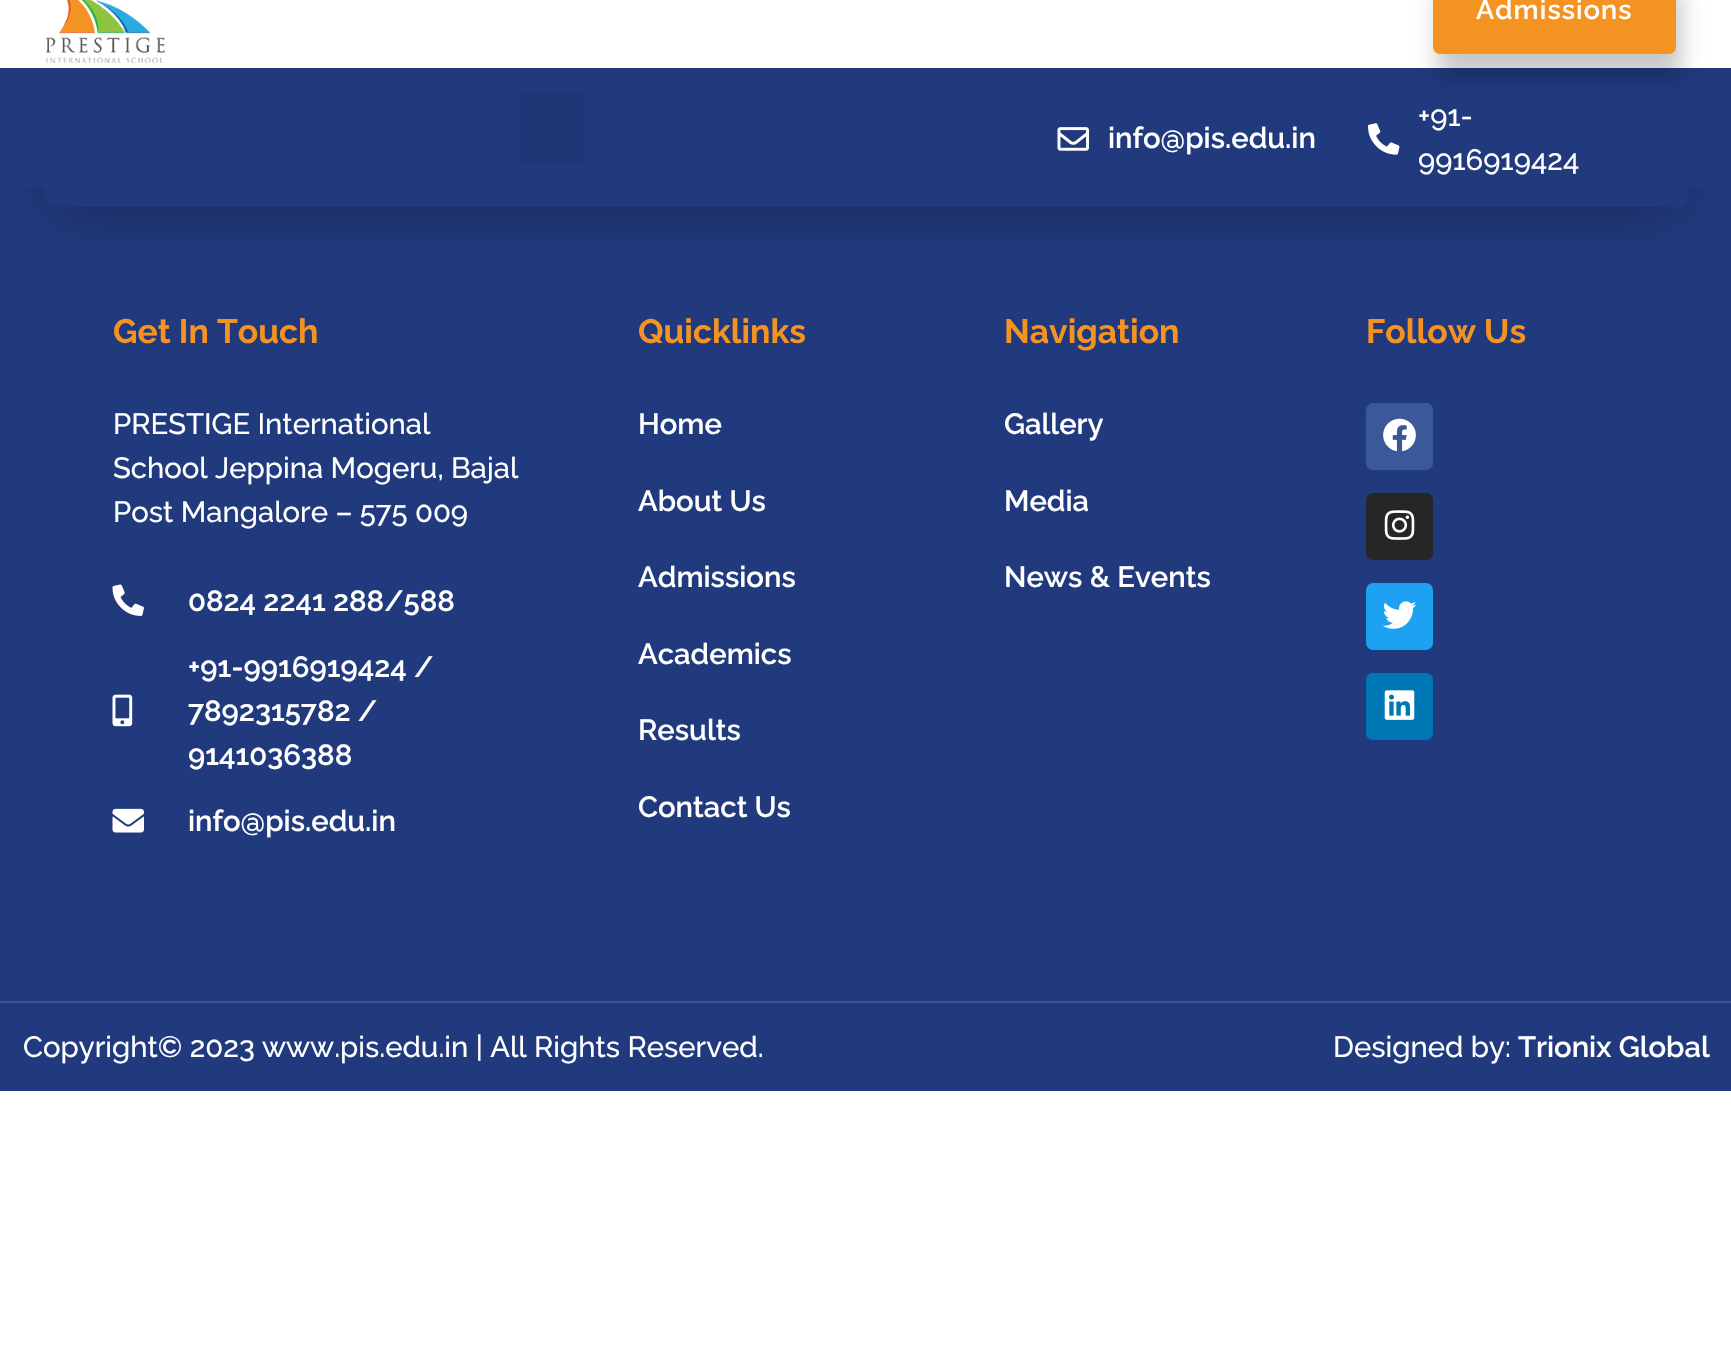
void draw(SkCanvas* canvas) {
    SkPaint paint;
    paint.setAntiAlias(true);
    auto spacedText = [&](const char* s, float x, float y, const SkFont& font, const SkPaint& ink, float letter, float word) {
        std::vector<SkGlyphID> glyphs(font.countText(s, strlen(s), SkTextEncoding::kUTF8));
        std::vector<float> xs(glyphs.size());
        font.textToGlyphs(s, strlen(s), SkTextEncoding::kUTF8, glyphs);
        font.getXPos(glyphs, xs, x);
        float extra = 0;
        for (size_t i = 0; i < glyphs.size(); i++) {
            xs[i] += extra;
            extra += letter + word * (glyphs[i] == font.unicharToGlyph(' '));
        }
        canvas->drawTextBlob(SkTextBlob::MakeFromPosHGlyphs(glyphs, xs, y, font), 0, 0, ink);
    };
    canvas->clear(0xFFFFFFFF);
    paint.setColor(0xFF21397D);
    canvas->drawRect(SkRect::MakeXYWH(0, 187, 1731, 814), paint);
    paint.setColor(0x59000000);
    paint.setMaskFilter(SkMaskFilter::MakeBlur(kNormal_SkBlurStyle, 32.5f));
    canvas->drawRect(SkRect::MakeXYWH(59, -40, 1615, 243), paint);
    paint.setMaskFilter(nullptr);
    paint.setColor(0xFF21397D);
    canvas->drawRoundRect(SkRect::MakeXYWH(45, -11, 1643, 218), 11, 11, paint);
    paint.setColor(0xFFFFFFFF);
    canvas->drawRect(SkRect::MakeXYWH(0, 0, 1731, 68), paint);
    canvas->drawImageRect(SkImages::DeferredFromEncodedData(SkData::MakeFromFileName("img1.png")), SkRect::MakeXYWH(46, 0, 119, 63), SkSamplingOptions());
    paint.setColor(0xFF21397D);
    canvas->drawRect(SkRect::MakeXYWH(0, 68, 1731, 119), paint);
    paint.setColor(0x38000000);
    paint.setMaskFilter(SkMaskFilter::MakeBlur(kNormal_SkBlurStyle, 11));
    canvas->drawRoundRect(SkRect::MakeXYWH(1438, -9, 243, 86), 7, 7, paint);
    paint.setMaskFilter(nullptr);
    paint.setColor(0xFFF59322);
    canvas->drawRoundRect(SkRect::MakeXYWH(1433, -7, 243, 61), 7, 7, paint);
    SkFont font1(fontMgr->matchFamilyStyle("Raleway", SkFontStyle(600, SkFontStyle::kNormal_Width, SkFontStyle::kUpright_Slant)), 27);
    font1.setSubpixel(true);
    paint.setColor(0xFFFFFFFF);
    spacedText("Admissions", 1476, 19, font1, paint, 1.1f, 0);
    paint.setColor(0xFF1F3677);
    canvas->drawRoundRect(SkRect::MakeXYWH(520, 90, 63, 74), 7, 7, paint);
    canvas->drawImageRect(SkImages::DeferredFromEncodedData(SkData::MakeFromFileName("img2.png")), SkRect::MakeXYWH(1057, 127, 32, 24), SkSamplingOptions());
    SkFont font2(fontMgr->matchFamilyStyle("Raleway", SkFontStyle(600, SkFontStyle::kNormal_Width, SkFontStyle::kUpright_Slant)), 29.25f);
    font2.setSubpixel(true);
    paint.setColor(0xFFFFFFFF);
    canvas->drawString("info@pis.edu.in", 1108, 148, font2, paint);
    canvas->drawImageRect(SkImages::DeferredFromEncodedData(SkData::MakeFromFileName("img3.png")), SkRect::MakeXYWH(1368, 123, 32, 32), SkSamplingOptions());
    SkFont font3(fontMgr->matchFamilyStyle("Raleway", SkFontStyle(500, SkFontStyle::kNormal_Width, SkFontStyle::kUpright_Slant)), 29.25f);
    font3.setSubpixel(true);
    canvas->drawString("+91-", 1418, 126, font3, paint);
    canvas->drawString("9916919424", 1418, 170, font3, paint);
    SkFont font4(fontMgr->matchFamilyStyle("Raleway", SkFontStyle::Bold()), 33.75f);
    font4.setSubpixel(true);
    paint.setColor(0xFFF59322);
    canvas->drawString("Get In Touch", 113, 343, font4, paint);
    paint.setColor(0xFFFFFFFF);
    canvas->drawString("PRESTIGE International", 113, 434, font3, paint);
    canvas->drawString("School Jeppina Mogeru, Bajal", 113, 478, font3, paint);
    canvas->drawString("Post Mangalore – 575 009", 113, 522, font3, paint);
    canvas->drawImageRect(SkImages::DeferredFromEncodedData(SkData::MakeFromFileName("img4.png")), SkRect::MakeXYWH(112, 584, 32, 32), SkSamplingOptions());
    canvas->drawString("0824 2241 288/588", 188, 611, font2, paint);
    canvas->drawImageRect(SkImages::DeferredFromEncodedData(SkData::MakeFromFileName("img5.png")), SkRect::MakeXYWH(112, 694, 21, 33), SkSamplingOptions());
    canvas->drawString("+91-9916919424 /", 188, 677, font2, paint);
    canvas->drawString("7892315782 /", 188, 721, font2, paint);
    canvas->drawString("9141036388", 188, 765, font2, paint);
    canvas->drawImageRect(SkImages::DeferredFromEncodedData(SkData::MakeFromFileName("img6.png")), SkRect::MakeXYWH(112, 808, 32, 25), SkSamplingOptions());
    canvas->drawString("info@pis.edu.in", 188, 831, font2, paint);
    paint.setColor(0xFFF59322);
    canvas->drawString("Quicklinks", 638, 343, font4, paint);
    paint.setColor(0xFFFFFFFF);
    canvas->drawString("Home", 638, 434, font2, paint);
    canvas->drawString("About Us", 638, 511, font2, paint);
    canvas->drawString("Admissions", 638, 587, font2, paint);
    canvas->drawString("Academics", 638, 664, font2, paint);
    canvas->drawString("Results", 638, 740, font2, paint);
    canvas->drawString("Contact Us", 638, 817, font2, paint);
    paint.setColor(0xFFF59322);
    canvas->drawString("Navigation", 1004, 343, font4, paint);
    paint.setColor(0xFFFFFFFF);
    canvas->drawString("Gallery", 1004, 434, font2, paint);
    canvas->drawString("Media", 1004, 511, font2, paint);
    canvas->drawString("News & Events", 1004, 587, font2, paint);
    paint.setColor(0xFFF59322);
    canvas->drawString("Follow Us", 1366, 343, font4, paint);
    paint.setColor(0xFF3B5998);
    canvas->drawRoundRect(SkRect::MakeXYWH(1366, 403, 67, 67), 7, 7, paint);
    canvas->drawImageRect(SkImages::DeferredFromEncodedData(SkData::MakeFromFileName("img7.png")), SkRect::MakeXYWH(1383, 418, 33, 34), SkSamplingOptions());
    paint.setColor(0xFF262626);
    canvas->drawRoundRect(SkRect::MakeXYWH(1366, 493, 67, 67), 7, 7, paint);
    canvas->drawImageRect(SkImages::DeferredFromEncodedData(SkData::MakeFromFileName("img8.png")), SkRect::MakeXYWH(1384, 510, 31, 30), SkSamplingOptions());
    paint.setColor(0xFF1DA1F2);
    canvas->drawRoundRect(SkRect::MakeXYWH(1366, 583, 67, 67), 7, 7, paint);
    canvas->drawImageRect(SkImages::DeferredFromEncodedData(SkData::MakeFromFileName("img9.png")), SkRect::MakeXYWH(1382, 601, 35, 28), SkSamplingOptions());
    paint.setColor(0xFF0077B5);
    canvas->drawRoundRect(SkRect::MakeXYWH(1366, 673, 67, 67), 7, 7, paint);
    canvas->drawImageRect(SkImages::DeferredFromEncodedData(SkData::MakeFromFileName("img10.png")), SkRect::MakeXYWH(1384, 690, 31, 30), SkSamplingOptions());
    paint.setColor(0xFF21397D);
    canvas->drawRect(SkRect::MakeXYWH(0, 1003, 1731, 88), paint);
    paint.setColor(0xFF40538B);
    canvas->drawRect(SkRect::MakeXYWH(0, 1001, 1731, 2), paint);
    paint.setColor(0xFFFFFFFF);
    canvas->drawString("Copyright© 2023 www.pis.edu.in | All Rights Reserved.", 23, 1057, font3, paint);
    canvas->drawString("Designed by:", 1333, 1057, font3, paint);
    canvas->drawString("Trionix Global", 1518, 1057, font2, paint);
}
